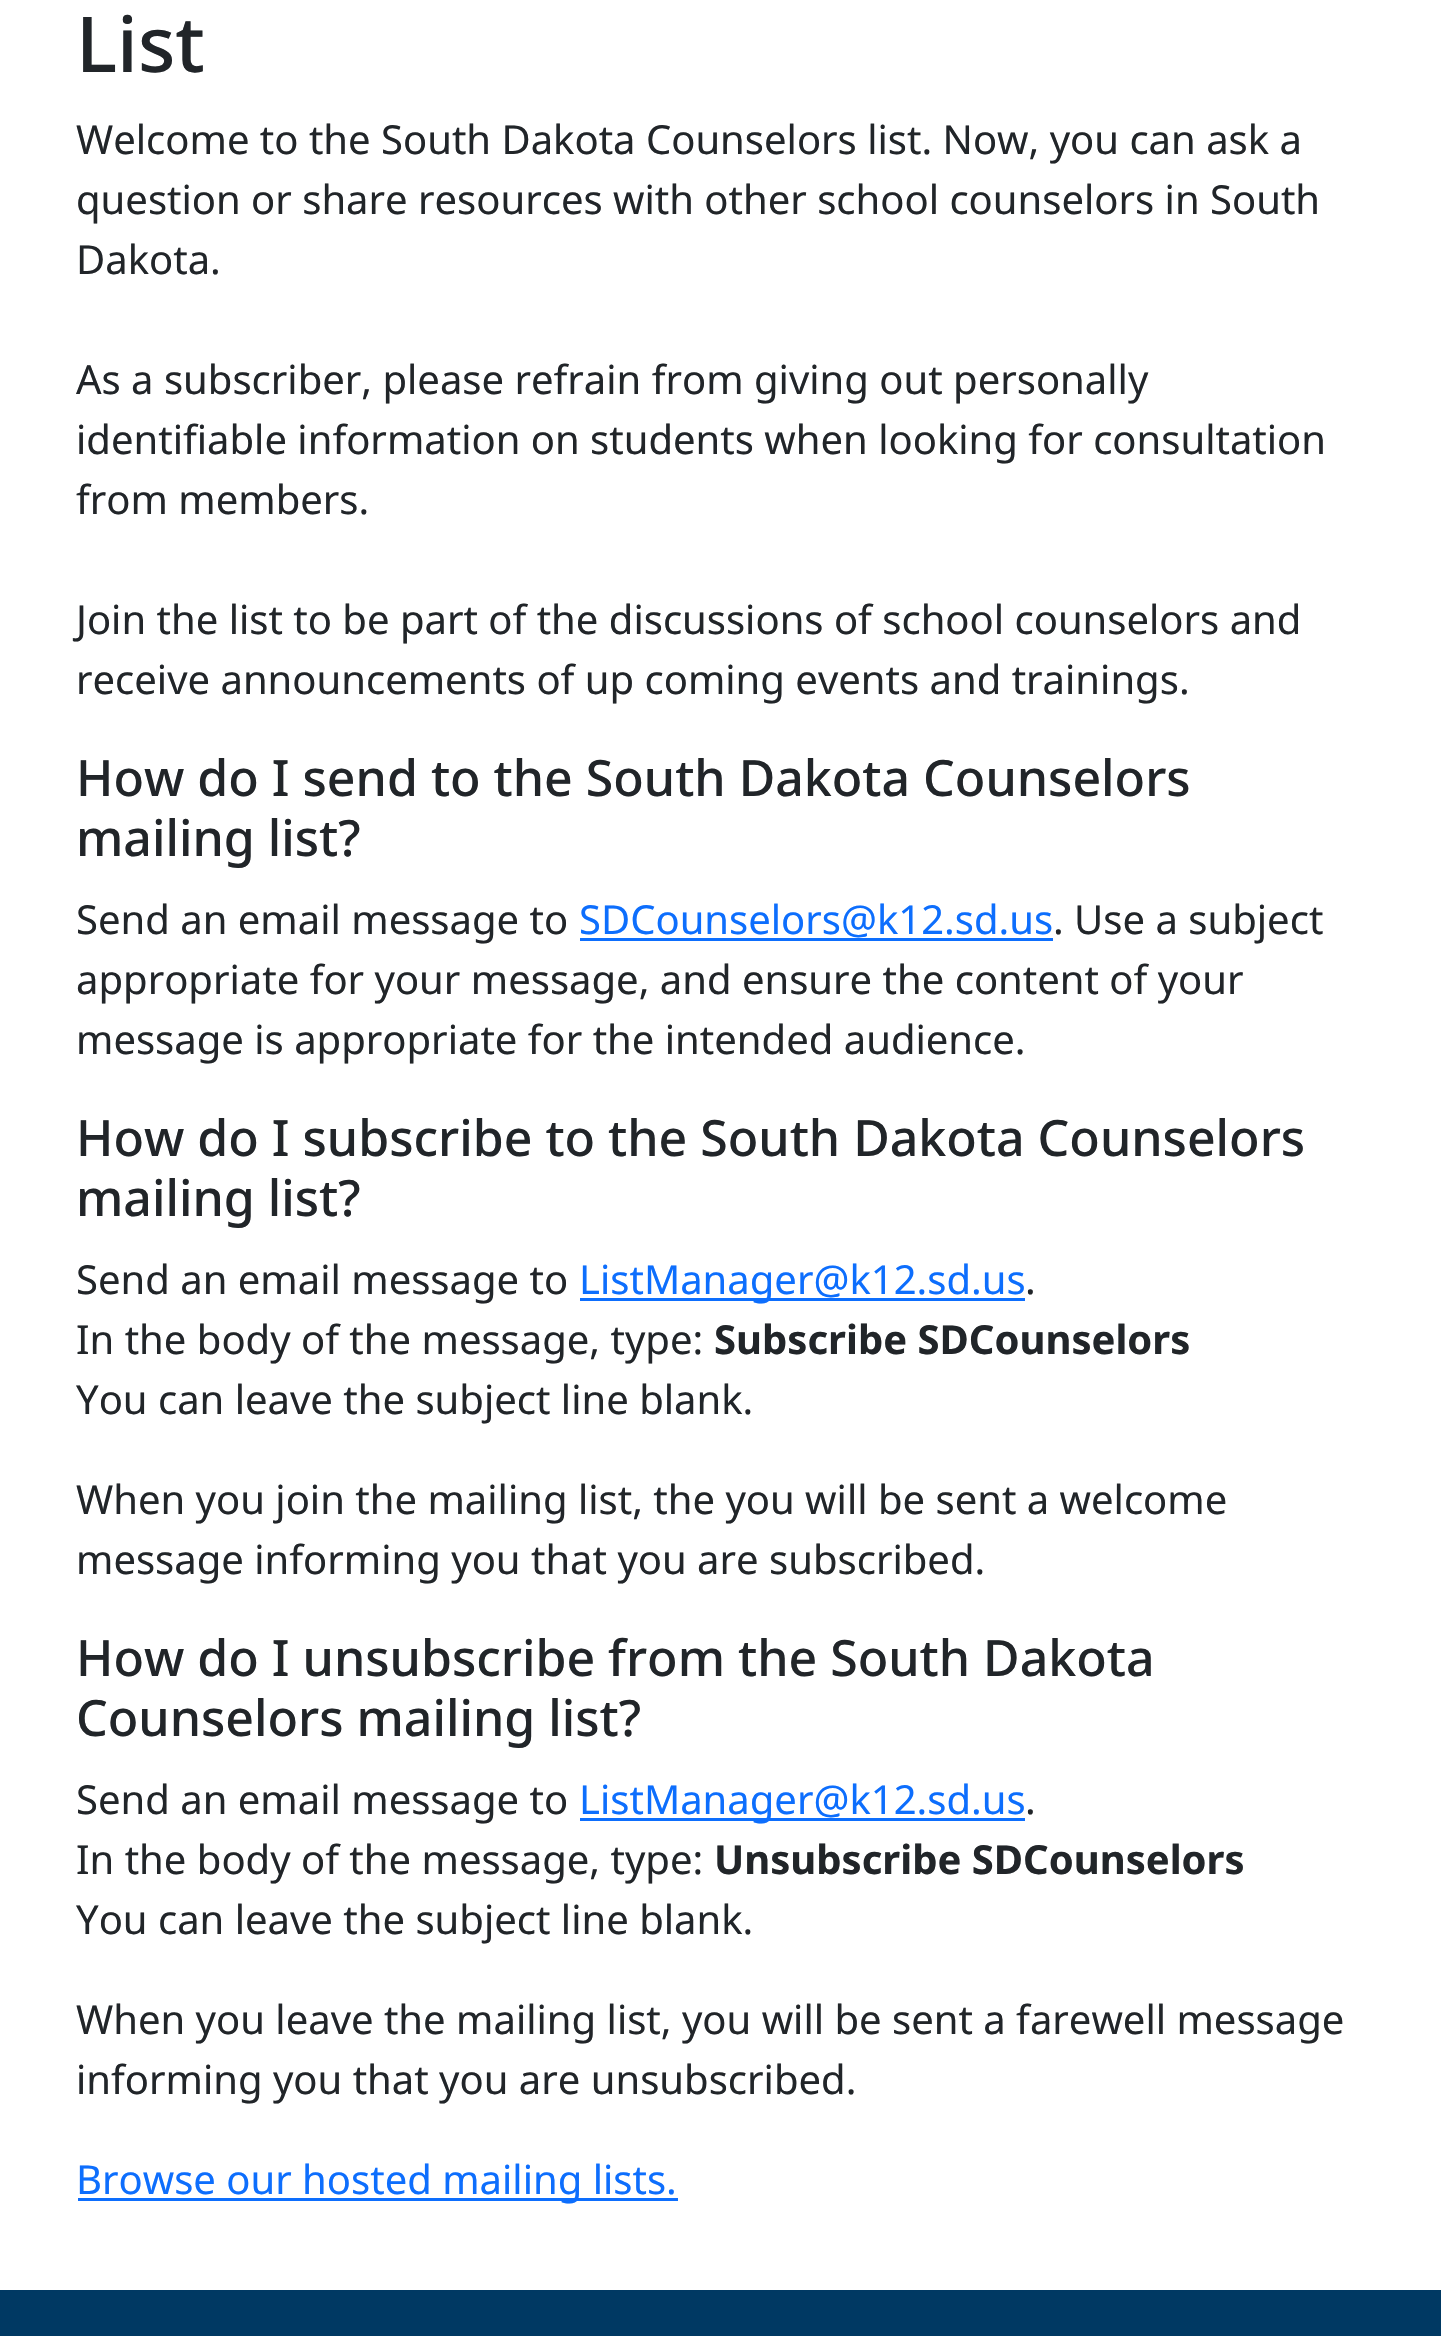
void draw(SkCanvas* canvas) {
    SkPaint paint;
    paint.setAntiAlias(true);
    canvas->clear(0xFFFFFFFF);
    SkFont font1(fontMgr->matchFamilyStyle("Noto Sans", SkFontStyle(500, SkFontStyle::kNormal_Width, SkFontStyle::kUpright_Slant)), 77);
    font1.setSubpixel(true);
    paint.setColor(0xFF212529);
    canvas->drawString("List", 76, 72, font1, paint);
    SkFont font2(fontMgr->matchFamilyStyle("Noto Sans", SkFontStyle::Normal()), 40);
    font2.setSubpixel(true);
    canvas->drawString("Welcome to the South Dakota Counselors list. Now, you can ask a", 76, 154, font2, paint);
    canvas->drawString("question or share resources with other school counselors in South", 76, 214, font2, paint);
    canvas->drawString("Dakota.", 76, 274, font2, paint);
    canvas->drawString("As a subscriber, please refrain from giving out personally", 76, 394, font2, paint);
    canvas->drawString("identifiable information on students when looking for consultation", 76, 454, font2, paint);
    canvas->drawString("from members.", 76, 514, font2, paint);
    canvas->drawString("Join the list to be part of the discussions of school counselors and", 76, 634, font2, paint);
    canvas->drawString("receive announcements of up coming events and trainings.", 76, 694, font2, paint);
    SkFont font3(fontMgr->matchFamilyStyle("Noto Sans", SkFontStyle(500, SkFontStyle::kNormal_Width, SkFontStyle::kUpright_Slant)), 50);
    font3.setSubpixel(true);
    canvas->drawString("How do I send to the South Dakota Counselors", 76, 796, font3, paint);
    canvas->drawString("mailing list?", 76, 856, font3, paint);
    canvas->drawString("Send an email message to", 76, 934, font2, paint);
    paint.setColor(0xFF0D6EFD);
    canvas->drawString("SDCounselors@k12.sd.us", 579, 934, font2, paint);
    canvas->drawRect(SkRect::MakeXYWH(580, 938, 473, 3), paint);
    paint.setColor(0xFF212529);
    canvas->drawString(". Use a subject", 1053, 934, font2, paint);
    canvas->drawString("appropriate for your message, and ensure the content of your", 76, 994, font2, paint);
    canvas->drawString("message is appropriate for the intended audience.", 76, 1054, font2, paint);
    canvas->drawString("How do I subscribe to the South Dakota Counselors", 76, 1156, font3, paint);
    canvas->drawString("mailing list?", 76, 1216, font3, paint);
    canvas->drawString("Send an email message to", 76, 1294, font2, paint);
    paint.setColor(0xFF0D6EFD);
    canvas->drawRect(SkRect::MakeXYWH(580, 1298, 445, 3), paint);
    canvas->drawString("ListManager@k12.sd.us", 579, 1294, font2, paint);
    paint.setColor(0xFF212529);
    canvas->drawString(".", 1025, 1294, font2, paint);
    canvas->drawString("In the body of the message, type:", 76, 1354, font2, paint);
    SkFont font4(fontMgr->matchFamilyStyle("Noto Sans", SkFontStyle::Bold()), 40);
    font4.setSubpixel(true);
    canvas->drawString("Subscribe SDCounselors", 714, 1354, font4, paint);
    canvas->drawString("You can leave the subject line blank.", 76, 1414, font2, paint);
    canvas->drawString("When you join the mailing list, the you will be sent a welcome", 76, 1514, font2, paint);
    canvas->drawString("message informing you that you are subscribed.", 76, 1574, font2, paint);
    canvas->drawString("How do I unsubscribe from the South Dakota", 76, 1676, font3, paint);
    canvas->drawString("Counselors mailing list?", 76, 1736, font3, paint);
    canvas->drawString("Send an email message to", 76, 1814, font2, paint);
    paint.setColor(0xFF0D6EFD);
    canvas->drawRect(SkRect::MakeXYWH(580, 1818, 445, 3), paint);
    canvas->drawString("ListManager@k12.sd.us", 579, 1814, font2, paint);
    paint.setColor(0xFF212529);
    canvas->drawString(".", 1025, 1814, font2, paint);
    canvas->drawString("In the body of the message, type:", 76, 1874, font2, paint);
    canvas->drawString("Unsubscribe SDCounselors", 714, 1874, font4, paint);
    canvas->drawString("You can leave the subject line blank.", 76, 1934, font2, paint);
    canvas->drawString("When you leave the mailing list, you will be sent a farewell message", 76, 2034, font2, paint);
    canvas->drawString("informing you that you are unsubscribed.", 76, 2094, font2, paint);
    paint.setColor(0xFF0D6EFD);
    canvas->drawRect(SkRect::MakeXYWH(78, 2198, 600, 3), paint);
    canvas->drawString("Browse our hosted mailing lists.", 76, 2194, font2, paint);
    paint.setColor(0xFF003963);
    canvas->drawRect(SkRect::MakeXYWH(0, 2290, 1441, 46), paint);
}
